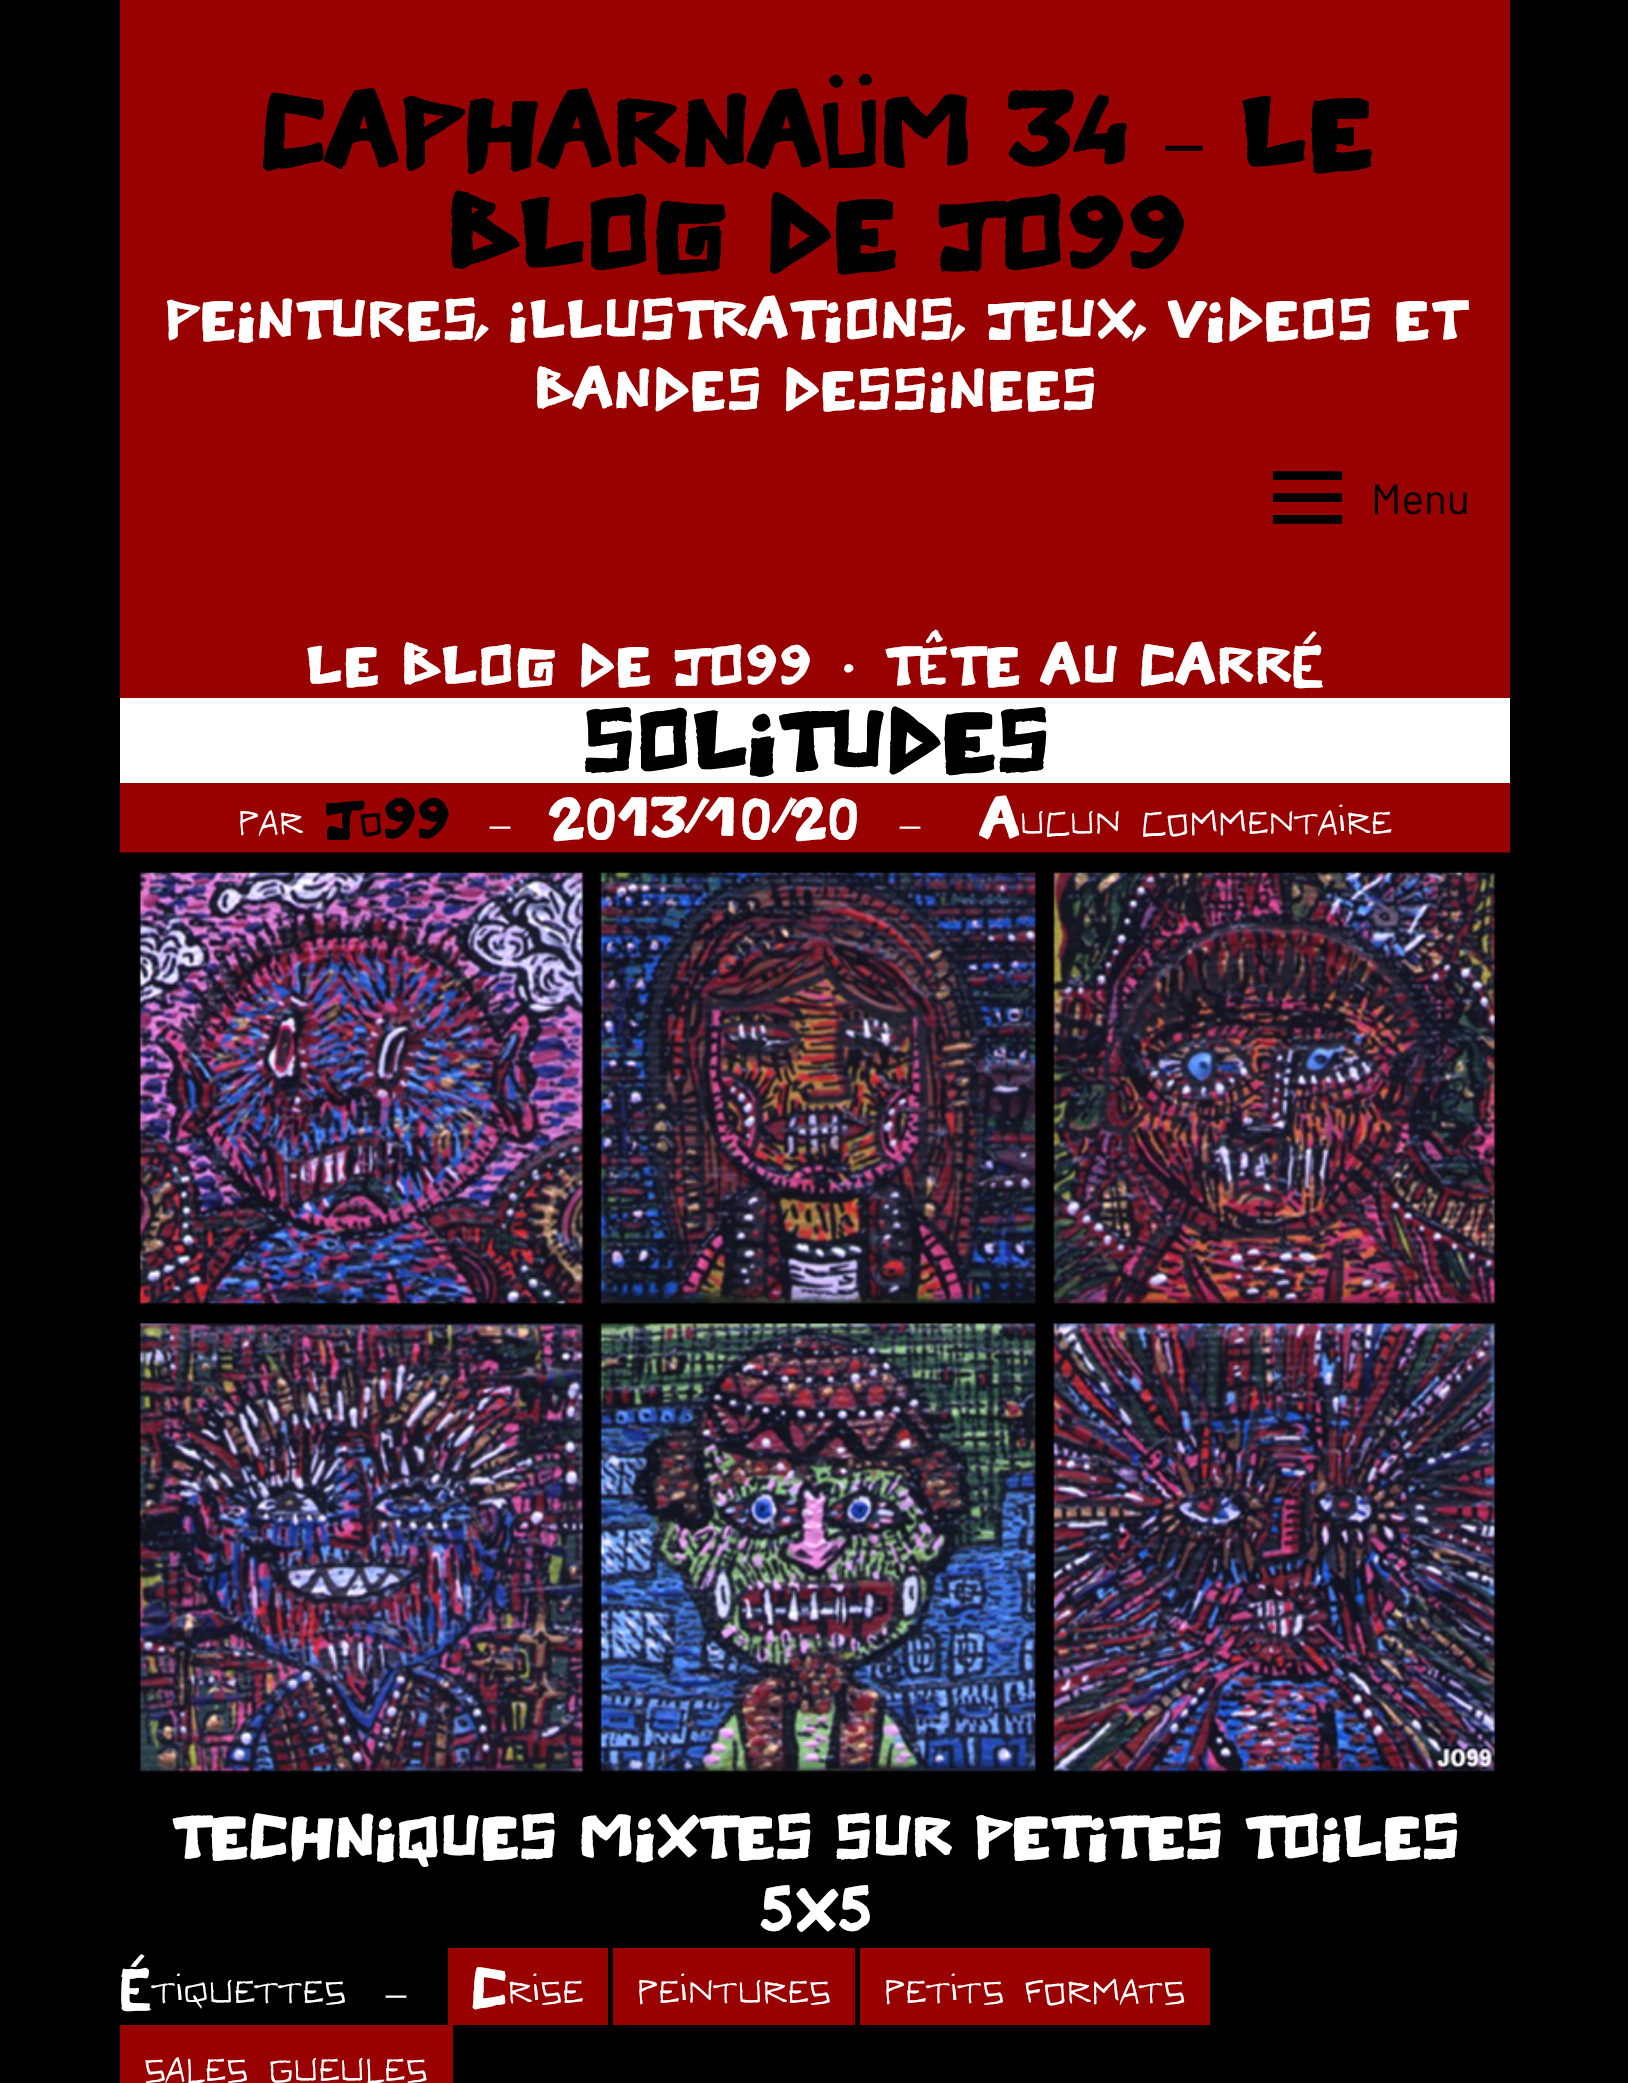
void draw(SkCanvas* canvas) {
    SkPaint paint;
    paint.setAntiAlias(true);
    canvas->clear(0xFF000000);
    paint.setColor(0xFF990000);
    canvas->drawRect(SkRect::MakeXYWH(120, 0, 1390, 698), paint);
    SkFont font1(fontMgr->matchFamilyStyle("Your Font", SkFontStyle::Bold()), 72);
    font1.setSubpixel(true);
    paint.setColor(0xFF000000);
    canvas->drawString("CAPHARNAÜM 34", 258, 165, font1, paint);
    SkFont font2(fontMgr->matchFamilyStyle("Liberation Serif", SkFontStyle::Bold()), 72);
    font2.setSubpixel(true);
    canvas->drawString("–", 1166, 165, font2, paint);
    canvas->drawString("LE", 1238, 165, font1, paint);
    canvas->drawString("BLOG DE JO99", 444, 266, font1, paint);
    SkFont font3(fontMgr->matchFamilyStyle("Your Font", SkFontStyle::Normal()), 40);
    font3.setSubpixel(true);
    paint.setColor(0xFFFFFFFF);
    canvas->drawString("PEINTURES, ILLUSTRATIONS, JEUX, VIDEOS ET", 164, 337, font3, paint);
    canvas->drawString("BANDES DESSINEES", 533, 407, font3, paint);
    canvas->drawImageRect(SkImages::DeferredFromEncodedData(SkData::MakeFromFileName("img1.png")), SkRect::MakeXYWH(1272, 471, 71, 53), SkSamplingOptions());
    SkFont font4(fontMgr->matchFamilyStyle("Barlow", SkFontStyle::Normal()), 42.5f);
    font4.setSubpixel(true);
    paint.setColor(0xFF000000);
    canvas->drawString("Menu", 1371, 514, font4, paint);
    paint.setColor(0xFFFFFFFF);
    canvas->drawRect(SkRect::MakeXYWH(120, 698, 1390, 85), paint);
    canvas->drawString("LE BLOG DE JO99", 305, 683, font3, paint);
    canvas->drawString("•", 843, 683, font3, paint);
    canvas->drawString("TÊTE AU CARRÉ", 884, 683, font3, paint);
    SkFont font5(fontMgr->matchFamilyStyle("Your Font", SkFontStyle::Bold()), 60);
    font5.setSubpixel(true);
    paint.setColor(0xFF000000);
    canvas->drawString("SOLITUDES", 581, 768, font5, paint);
    paint.setColor(0xFF990000);
    canvas->drawRect(SkRect::MakeXYWH(120, 783, 1390, 70), paint);
    paint.setColor(0xFFFFFFFF);
    canvas->drawString("par", 238, 837, font3, paint);
    SkFont font6(fontMgr->matchFamilyStyle("Your Font", SkFontStyle::Bold()), 40);
    font6.setSubpixel(true);
    paint.setColor(0xFF000000);
    canvas->drawString("Jo99", 323, 837, font6, paint);
    SkFont font7(fontMgr->matchFamilyStyle("Liberation Serif", SkFontStyle::Normal()), 40);
    font7.setSubpixel(true);
    paint.setColor(0xFFFFFFFF);
    canvas->drawString("–", 490, 837, font7, paint);
    canvas->drawString("2013/10/20", 550, 837, font3, paint);
    canvas->drawString("–", 900, 837, font7, paint);
    canvas->drawString("Aucun commentaire", 980, 837, font3, paint);
    canvas->drawImageRect(SkImages::DeferredFromEncodedData(SkData::MakeFromFileName("img2.png")), SkRect::MakeXYWH(120, 852, 1390, 921), SkSamplingOptions());
    SkFont font8(fontMgr->matchFamilyStyle("Your Font", SkFontStyle::Bold()), 42.5f);
    font8.setSubpixel(true);
    canvas->drawString("TECHNIQUES MIXTES SUR PETITES TOILES", 171, 1856, font8, paint);
    canvas->drawString("5X5", 758, 1930, font8, paint);
    canvas->drawString("Étiquettes", 120, 2006, font3, paint);
    canvas->drawString("–", 386, 2006, font7, paint);
    paint.setColor(0xFF990000);
    canvas->drawRect(SkRect::MakeXYWH(448, 1948, 160, 77), paint);
    paint.setColor(0xFFFFFFFF);
    canvas->drawString("Crise", 470, 2006, font3, paint);
    paint.setColor(0xFF990000);
    canvas->drawRect(SkRect::MakeXYWH(613, 1948, 242, 77), paint);
    paint.setColor(0xFFFFFFFF);
    canvas->drawString("peintures", 637, 2006, font3, paint);
    paint.setColor(0xFF990000);
    canvas->drawRect(SkRect::MakeXYWH(860, 1948, 350, 77), paint);
    paint.setColor(0xFFFFFFFF);
    canvas->drawString("petits formats", 884, 2006, font3, paint);
    paint.setColor(0xFF990000);
    canvas->drawRect(SkRect::MakeXYWH(120, 2025, 333, 58), paint);
    paint.setColor(0xFFFFFFFF);
    canvas->drawString("sales gueules", 144, 2084, font3, paint);
}
